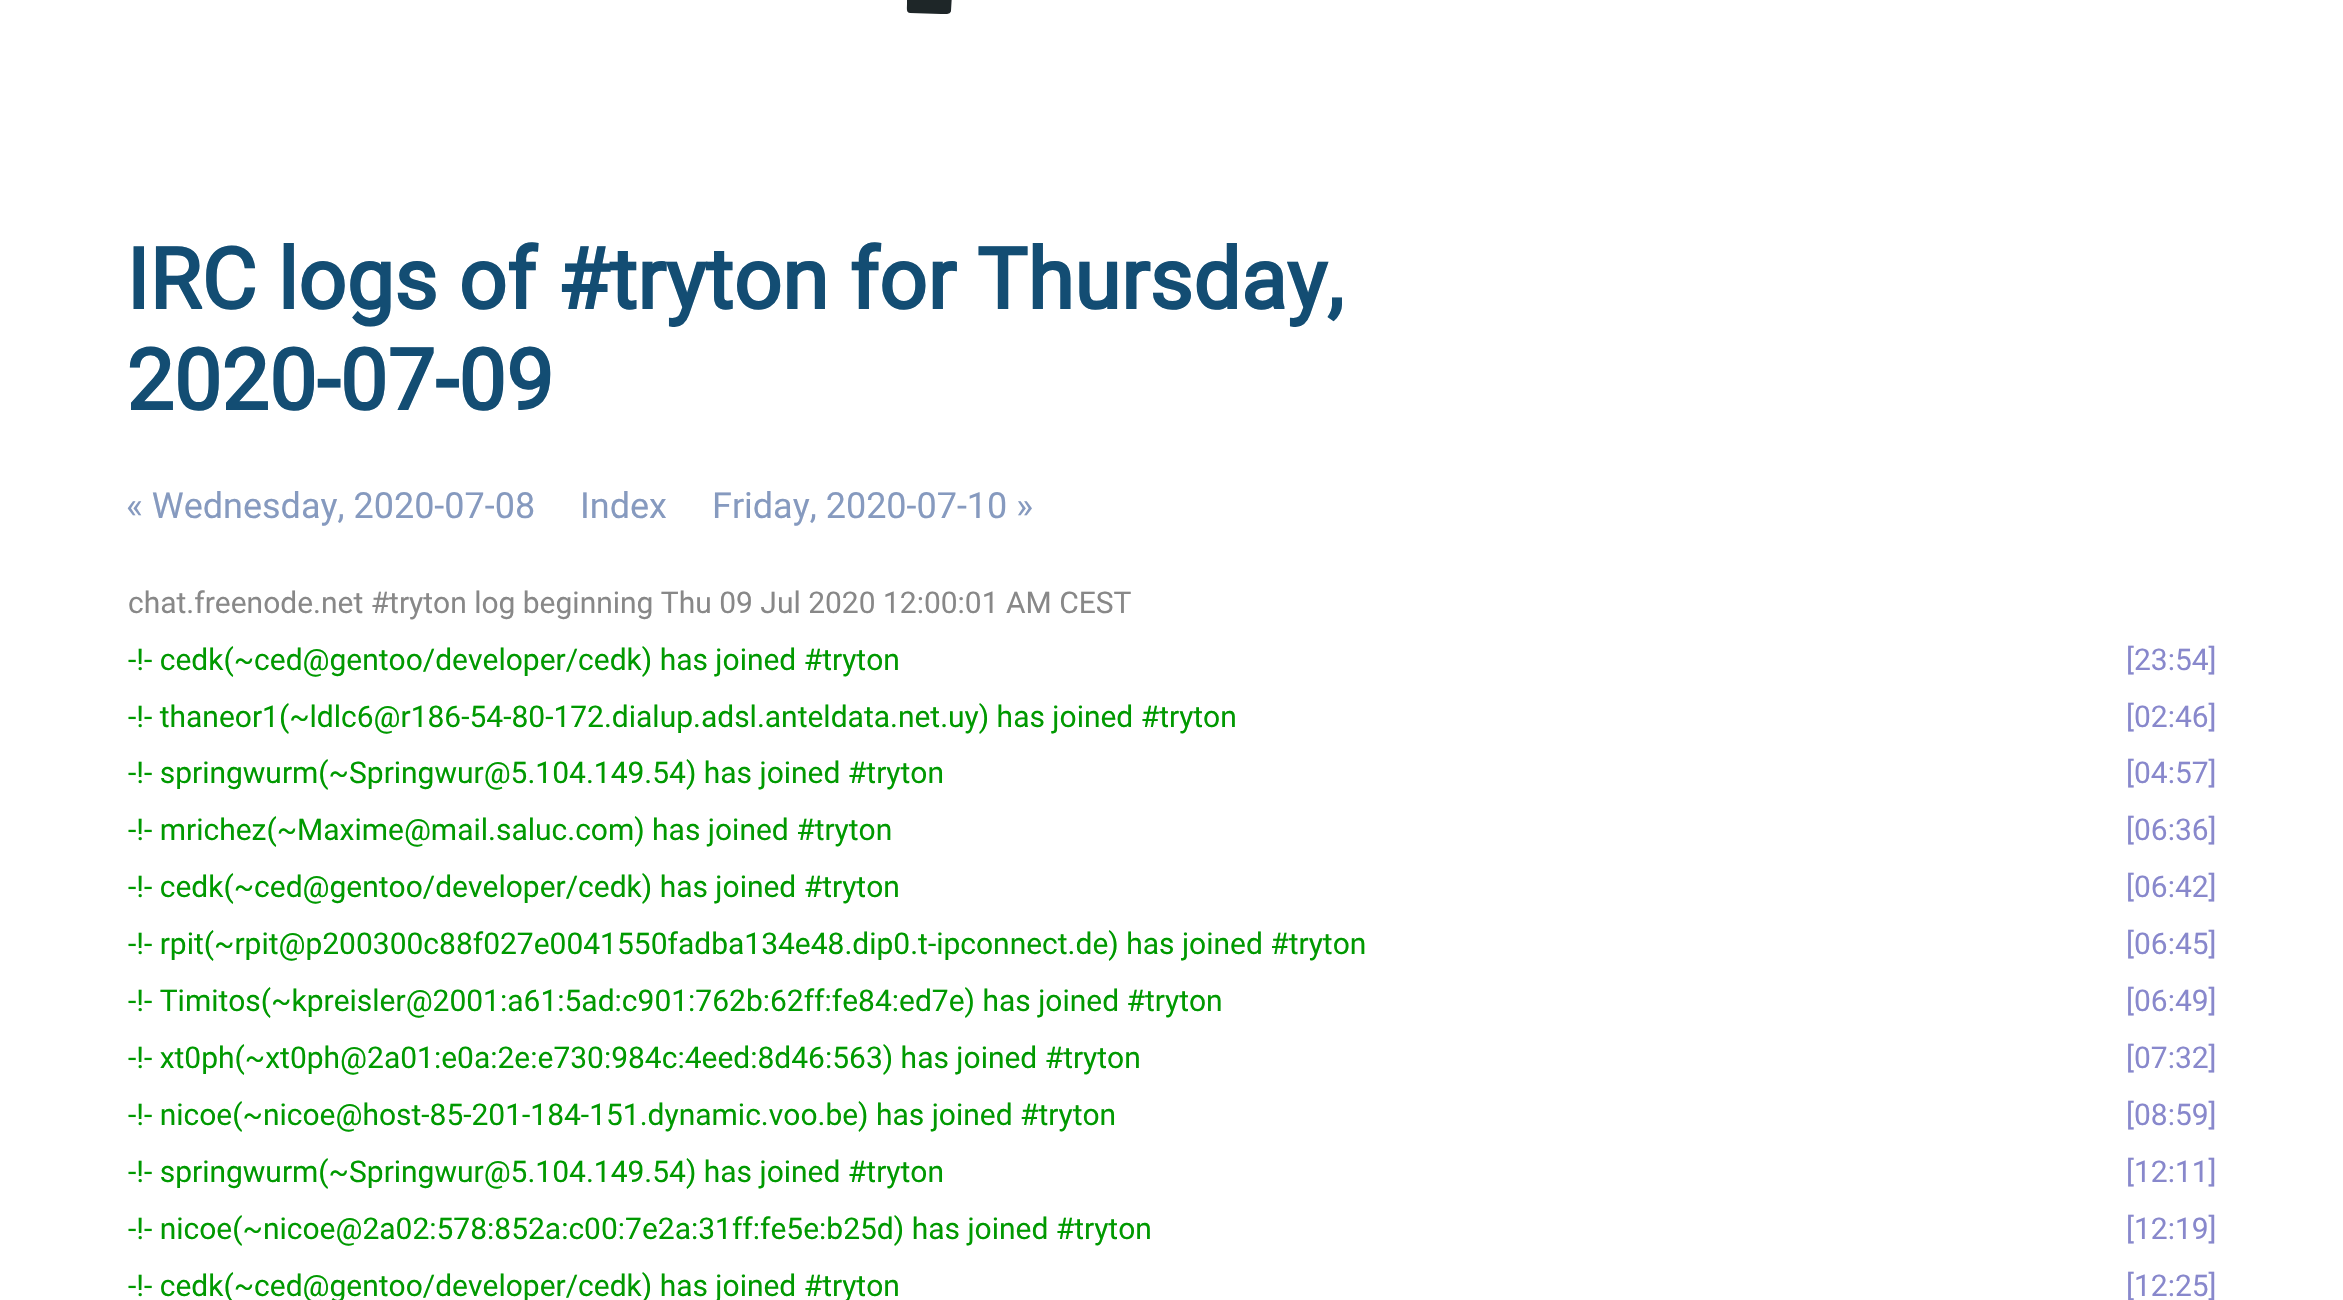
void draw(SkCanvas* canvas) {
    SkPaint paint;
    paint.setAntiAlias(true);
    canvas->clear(0xFFFFFFFF);
    paint.setColor(0xFF1E2628);
    canvas->drawPath(SkPathBuilder().moveTo(925, -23).lineTo(929, -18).lineTo(944, -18).cubicTo(953, -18, 952, -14, 952, -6).lineTo(951, 11).cubicTo(950, 15, 945, 14, 941, 14).lineTo(910, 13).cubicTo(906, 13, 907, 8, 907, 4).lineTo(907, -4).cubicTo(907, -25, 905, -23, 925, -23).close().detach(), paint);
    SkFont font1(fontMgr->matchFamilyStyle("Roboto", SkFontStyle::Bold()), 84.7f);
    font1.setSubpixel(true);
    paint.setColor(0xFF134D73);
    canvas->drawString("IRC logs of #tryton for Thursday,", 126, 309, font1, paint);
    canvas->drawString("2020-07-09", 126, 410, font1, paint);
    SkFont font2(fontMgr->matchFamilyStyle("Roboto", SkFontStyle::Normal()), 36);
    font2.setSubpixel(true);
    paint.setColor(0xFF869ABF);
    canvas->drawString("« Wednesday, 2020-07-08", 126, 518, font2, paint);
    canvas->drawString("Index", 580, 518, font2, paint);
    canvas->drawString("Friday, 2020-07-10 »", 712, 518, font2, paint);
    SkFont font3(fontMgr->matchFamilyStyle("Roboto", SkFontStyle::Normal()), 30);
    font3.setSubpixel(true);
    paint.setColor(0xFF888888);
    canvas->drawString("chat.freenode.net #tryton log beginning Thu 09 Jul 2020 12:00:01 AM CEST", 128, 613, font3, paint);
    paint.setColor(0xFF009900);
    canvas->drawString("-!- cedk(~ced@gentoo/developer/cedk) has joined #tryton", 128, 670, font3, paint);
    paint.setColor(0xFF8888CC);
    canvas->drawString("[23:54]", 2126, 670, font3, paint);
    paint.setColor(0xFF009900);
    canvas->drawString("-!- thaneor1(~ldlc6@r186-54-80-172.dialup.adsl.anteldata.net.uy) has joined #tryton", 128, 727, font3, paint);
    paint.setColor(0xFF8888CC);
    canvas->drawString("[02:46]", 2126, 727, font3, paint);
    paint.setColor(0xFF009900);
    canvas->drawString("-!- springwurm(~Springwur@5.104.149.54) has joined #tryton", 128, 783, font3, paint);
    paint.setColor(0xFF8888CC);
    canvas->drawString("[04:57]", 2126, 783, font3, paint);
    paint.setColor(0xFF009900);
    canvas->drawString("-!- mrichez(~Maxime@mail.saluc.com) has joined #tryton", 128, 840, font3, paint);
    paint.setColor(0xFF8888CC);
    canvas->drawString("[06:36]", 2126, 840, font3, paint);
    paint.setColor(0xFF009900);
    canvas->drawString("-!- cedk(~ced@gentoo/developer/cedk) has joined #tryton", 128, 897, font3, paint);
    paint.setColor(0xFF8888CC);
    canvas->drawString("[06:42]", 2126, 897, font3, paint);
    paint.setColor(0xFF009900);
    canvas->drawString("-!- rpit(~rpit@p200300c88f027e0041550fadba134e48.dip0.t-ipconnect.de) has joined #tryton", 128, 954, font3, paint);
    paint.setColor(0xFF8888CC);
    canvas->drawString("[06:45]", 2126, 954, font3, paint);
    paint.setColor(0xFF009900);
    canvas->drawString("-!- Timitos(~kpreisler@2001:a61:5ad:c901:762b:62ff:fe84:ed7e) has joined #tryton", 128, 1011, font3, paint);
    paint.setColor(0xFF8888CC);
    canvas->drawString("[06:49]", 2126, 1011, font3, paint);
    paint.setColor(0xFF009900);
    canvas->drawString("-!- xt0ph(~xt0ph@2a01:e0a:2e:e730:984c:4eed:8d46:563) has joined #tryton", 128, 1068, font3, paint);
    paint.setColor(0xFF8888CC);
    canvas->drawString("[07:32]", 2126, 1068, font3, paint);
    paint.setColor(0xFF009900);
    canvas->drawString("-!- nicoe(~nicoe@host-85-201-184-151.dynamic.voo.be) has joined #tryton", 128, 1125, font3, paint);
    paint.setColor(0xFF8888CC);
    canvas->drawString("[08:59]", 2126, 1125, font3, paint);
    paint.setColor(0xFF009900);
    canvas->drawString("-!- springwurm(~Springwur@5.104.149.54) has joined #tryton", 128, 1182, font3, paint);
    paint.setColor(0xFF8888CC);
    canvas->drawString("[12:11]", 2126, 1182, font3, paint);
    paint.setColor(0xFF009900);
    canvas->drawString("-!- nicoe(~nicoe@2a02:578:852a:c00:7e2a:31ff:fe5e:b25d) has joined #tryton", 128, 1239, font3, paint);
    paint.setColor(0xFF8888CC);
    canvas->drawString("[12:19]", 2126, 1239, font3, paint);
    paint.setColor(0xFF009900);
    canvas->drawString("-!- cedk(~ced@gentoo/developer/cedk) has joined #tryton", 128, 1296, font3, paint);
    paint.setColor(0xFF8888CC);
    canvas->drawString("[12:25]", 2126, 1296, font3, paint);
}
